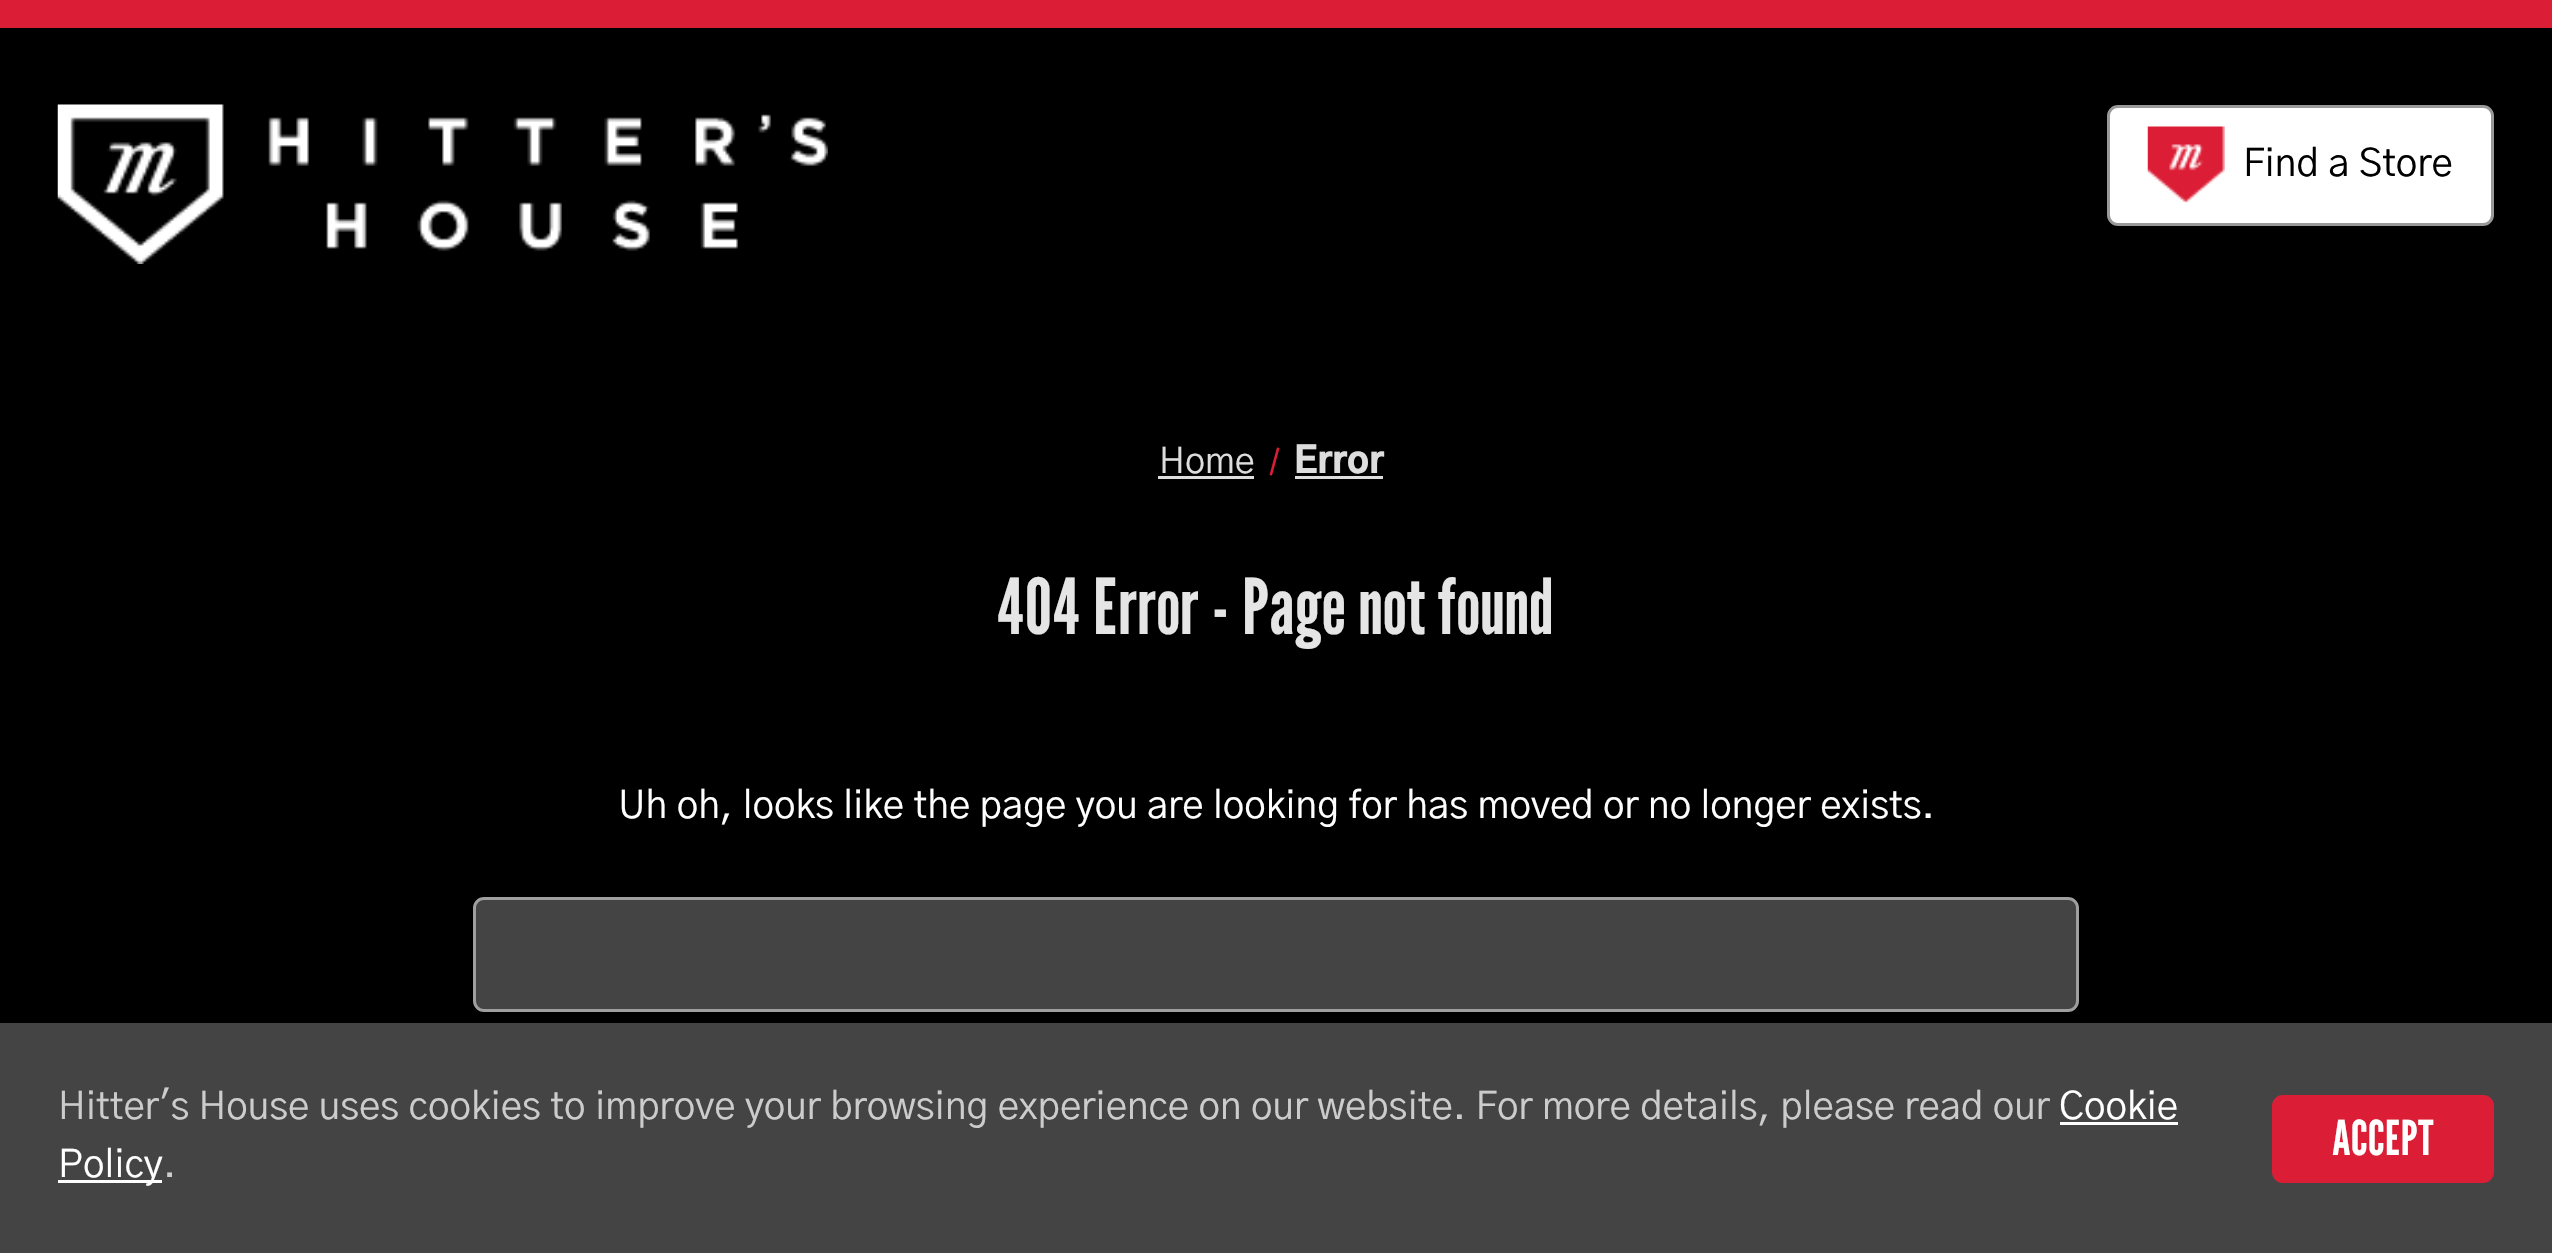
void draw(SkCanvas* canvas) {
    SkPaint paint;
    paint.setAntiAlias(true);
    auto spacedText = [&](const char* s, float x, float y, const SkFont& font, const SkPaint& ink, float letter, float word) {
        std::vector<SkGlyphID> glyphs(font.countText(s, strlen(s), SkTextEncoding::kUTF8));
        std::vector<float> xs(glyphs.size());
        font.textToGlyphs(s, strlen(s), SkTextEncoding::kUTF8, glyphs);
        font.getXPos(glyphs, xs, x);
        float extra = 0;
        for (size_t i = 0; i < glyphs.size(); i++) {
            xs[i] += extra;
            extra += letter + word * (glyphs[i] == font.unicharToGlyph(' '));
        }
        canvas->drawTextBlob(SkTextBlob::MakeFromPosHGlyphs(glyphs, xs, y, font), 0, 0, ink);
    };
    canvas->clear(0xFF000000);
    paint.setColor(0xFFDB1E36);
    canvas->drawRect(SkRect::MakeXYWH(0, 0, 2552, 28), paint);
    canvas->drawImageRect(SkImages::DeferredFromEncodedData(SkData::MakeFromFileName("img1.png")), SkRect::MakeXYWH(57, 104, 771, 160), SkSamplingOptions());
    paint.setColor(0xFFFFFFFF);
    canvas->drawRoundRect(SkRect::MakeXYWH(2108.5f, 106.5f, 384, 118), 9.5f, 9.5f, paint);
    paint.setStyle(SkPaint::kStroke_Style);
    paint.setStrokeWidth(3);
    paint.setColor(0xFF999999);
    canvas->drawRoundRect(SkRect::MakeXYWH(2108.5f, 106.5f, 384, 118), 9.5f, 9.5f, paint);
    canvas->drawImageRect(SkImages::DeferredFromEncodedData(SkData::MakeFromFileName("img2.png")), SkRect::MakeXYWH(2147, 126, 78, 78), SkSamplingOptions());
    SkFont font1(fontMgr->matchFamilyStyle("Gothic A1", SkFontStyle::Normal()), 38.5f);
    font1.setSubpixel(true);
    paint.setStyle(SkPaint::kFill_Style);
    paint.setColor(0xFF000000);
    canvas->drawString("Find a Store", 2243, 176, font1, paint);
    SkFont font2(fontMgr->matchFamilyStyle("Gothic A1", SkFontStyle::Normal()), 36);
    font2.setSubpixel(true);
    paint.setColor(0xFFDDDDDD);
    canvas->drawString("Home", 1159, 473, font2, paint);
    canvas->drawRect(SkRect::MakeXYWH(1158, 476, 96, 3), paint);
    paint.setColor(0xFFDB1E36);
    canvas->drawPath(SkPathBuilder().moveTo(1277, 447.5f).lineTo(1279.5f, 448).lineTo(1272, 475.5f).lineTo(1269.5f, 475).close().detach(), paint);
    SkFont font3(fontMgr->matchFamilyStyle("Gothic A1", SkFontStyle(900, SkFontStyle::kNormal_Width, SkFontStyle::kUpright_Slant)), 36);
    font3.setSubpixel(true);
    paint.setColor(0xFFDDDDDD);
    canvas->drawString("Error", 1294, 473, font3, paint);
    canvas->drawRect(SkRect::MakeXYWH(1295, 476, 88, 3), paint);
    SkFont font4(fontMgr->matchFamilyStyle("League Gothic", SkFontStyle::Normal()), 77);
    font4.setSubpixel(true);
    paint.setColor(0xFFE5E5E5);
    spacedText("404 Error - Page not found", 997, 634, font4, paint, 0.7f, 0);
    paint.setColor(0xFFFFFFFF);
    canvas->drawString("Uh oh, looks like the page you are looking for has moved or no longer exists.", 618, 818, font1, paint);
    paint.setColor(0xFF444444);
    canvas->drawRoundRect(SkRect::MakeXYWH(474.5f, 898.5f, 1603, 112), 9.5f, 9.5f, paint);
    paint.setStyle(SkPaint::kStroke_Style);
    paint.setColor(0xFF9F9F9F);
    canvas->drawRoundRect(SkRect::MakeXYWH(474.5f, 898.5f, 1603, 112), 9.5f, 9.5f, paint);
    paint.setStyle(SkPaint::kFill_Style);
    paint.setColor(0xFF444444);
    canvas->drawRect(SkRect::MakeXYWH(0, 1023, 2552, 230), paint);
    paint.setColor(0xFFCCCCCC);
    canvas->drawString("Hitter's House uses cookies to improve your browsing experience on our website. For more details, please read our", 58, 1119, font1, paint);
    paint.setColor(0xFFFFFFFF);
    canvas->drawString("Cookie", 2059, 1119, font1, paint);
    canvas->drawRect(SkRect::MakeXYWH(2060, 1122, 118, 3), paint);
    canvas->drawRect(SkRect::MakeXYWH(58, 1180, 104, 3), paint);
    canvas->drawString("Policy", 58, 1177, font1, paint);
    paint.setColor(0xFFCCCCCC);
    canvas->drawString(".", 163, 1177, font1, paint);
    paint.setColor(0xFFDB1E36);
    canvas->drawRoundRect(SkRect::MakeXYWH(2273.5f, 1096.5f, 219, 85), 9.5f, 9.5f, paint);
    paint.setStyle(SkPaint::kStroke_Style);
    canvas->drawRoundRect(SkRect::MakeXYWH(2273.5f, 1096.5f, 219, 85), 9.5f, 9.5f, paint);
    SkFont font5(fontMgr->matchFamilyStyle("League Gothic", SkFontStyle::Normal()), 48);
    font5.setSubpixel(true);
    paint.setStyle(SkPaint::kFill_Style);
    paint.setColor(0xFFFFFFFF);
    canvas->drawString("ACCEPT", 2332, 1155, font5, paint);
}
